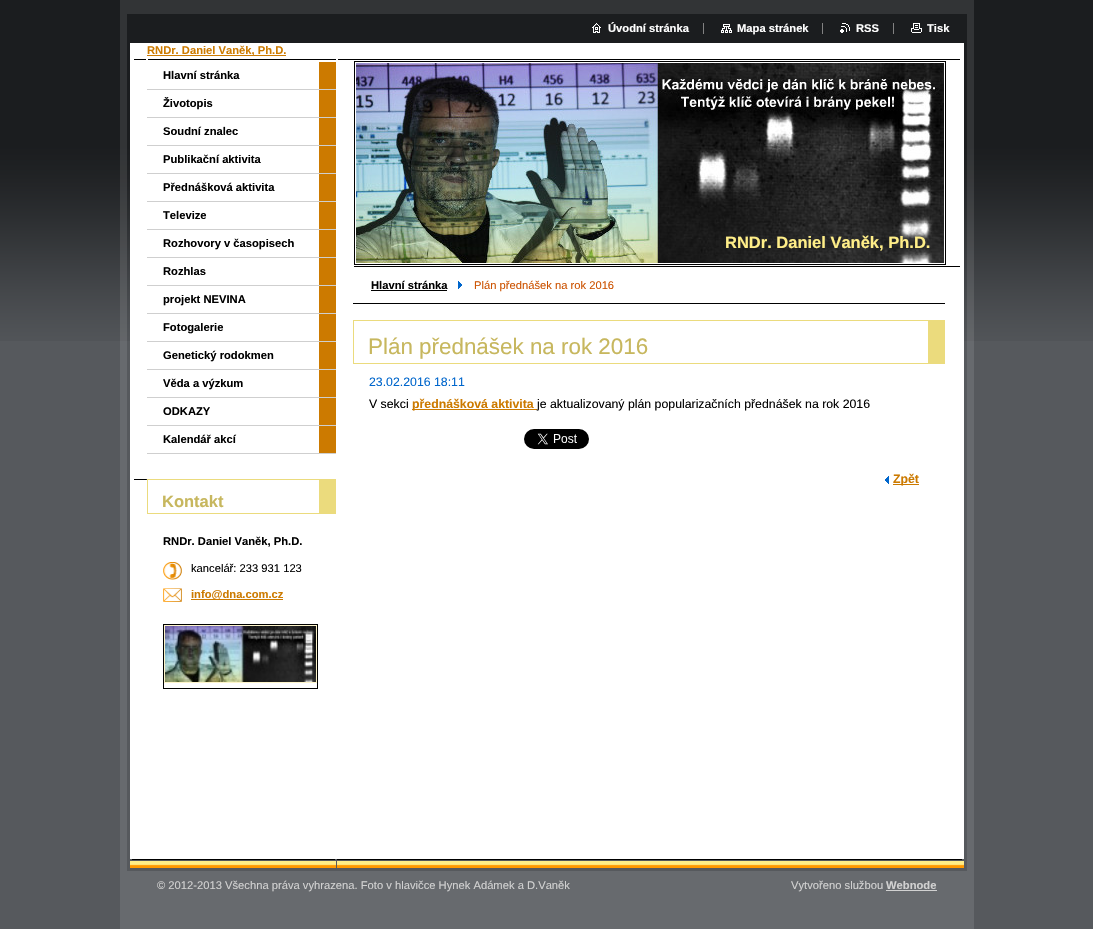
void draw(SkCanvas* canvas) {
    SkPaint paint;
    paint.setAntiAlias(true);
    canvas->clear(0xFF56595D);
    canvas->drawImageRect(SkImages::DeferredFromEncodedData(SkData::MakeFromFileName("img1.png")), SkRect::MakeXYWH(0, 0, 1093, 341), SkSamplingOptions());
    paint.setColor(0xFF676A6E);
    canvas->drawRect(SkRect::MakeXYWH(120, 341, 854, 588), paint);
    canvas->drawImageRect(SkImages::DeferredFromEncodedData(SkData::MakeFromFileName("img2.png")), SkRect::MakeXYWH(127, 341, 840, 518), SkSamplingOptions());
    canvas->drawImageRect(SkImages::DeferredFromEncodedData(SkData::MakeFromFileName("img3.png")), SkRect::MakeXYWH(120, 0, 854, 341), SkSamplingOptions());
    paint.setColor(0xFFFFFFFF);
    canvas->drawRect(SkRect::MakeXYWH(130, 43, 834, 298), paint);
    canvas->drawImageRect(SkImages::DeferredFromEncodedData(SkData::MakeFromFileName("img4.png")), SkRect::MakeXYWH(592, 23, 9, 10), SkSamplingOptions());
    SkFont font1(fontMgr->matchFamilyStyle("Liberation Sans", SkFontStyle::Bold()), 11.2f);
    font1.setSubpixel(true);
    canvas->drawString("Úvodní stránka", 608, 32, font1, paint);
    canvas->drawImageRect(SkImages::DeferredFromEncodedData(SkData::MakeFromFileName("img5.png")), SkRect::MakeXYWH(721, 24, 11, 9), SkSamplingOptions());
    canvas->drawString("Mapa stránek", 737, 32, font1, paint);
    paint.setColor(0xFF828282);
    canvas->drawRect(SkRect::MakeXYWH(703, 23, 1, 11), paint);
    canvas->drawImageRect(SkImages::DeferredFromEncodedData(SkData::MakeFromFileName("img6.png")), SkRect::MakeXYWH(840, 23, 10, 10), SkSamplingOptions());
    paint.setColor(0xFFFFFFFF);
    canvas->drawString("RSS", 856, 32, font1, paint);
    paint.setColor(0xFF828282);
    canvas->drawRect(SkRect::MakeXYWH(822, 23, 1, 11), paint);
    canvas->drawImageRect(SkImages::DeferredFromEncodedData(SkData::MakeFromFileName("img7.png")), SkRect::MakeXYWH(911, 23, 11, 10), SkSamplingOptions());
    paint.setColor(0xFFFFFFFF);
    canvas->drawString("Tisk", 927, 32, font1, paint);
    paint.setColor(0xFF828282);
    canvas->drawRect(SkRect::MakeXYWH(893, 23, 1, 11), paint);
    paint.setColor(0xFFCC7A00);
    canvas->drawRect(SkRect::MakeXYWH(147, 55, 139, 1), paint);
    canvas->drawString("RNDr. Daniel Vaněk, Ph.D.", 147, 54, font1, paint);
    canvas->drawImageRect(SkImages::DeferredFromEncodedData(SkData::MakeFromFileName("img8.png")), SkRect::MakeXYWH(134, 59, 202, 1), SkSamplingOptions());
    canvas->drawRect(SkRect::MakeXYWH(319, 62, 17, 391), paint);
    paint.setColor(0xFFCFCFCF);
    canvas->drawRect(SkRect::MakeXYWH(147, 89, 189, 1), paint);
    paint.setColor(0xFF000000);
    canvas->drawString("Hlavní stránka", 163, 79, font1, paint);
    paint.setColor(0xFFCFCFCF);
    canvas->drawRect(SkRect::MakeXYWH(147, 117, 189, 1), paint);
    paint.setColor(0xFF000000);
    canvas->drawString("Životopis", 163, 107, font1, paint);
    paint.setColor(0xFFCFCFCF);
    canvas->drawRect(SkRect::MakeXYWH(147, 145, 189, 1), paint);
    paint.setColor(0xFF000000);
    canvas->drawString("Soudní znalec", 163, 135, font1, paint);
    paint.setColor(0xFFCFCFCF);
    canvas->drawRect(SkRect::MakeXYWH(147, 173, 189, 1), paint);
    paint.setColor(0xFF000000);
    canvas->drawString("Publikační aktivita", 163, 163, font1, paint);
    paint.setColor(0xFFCFCFCF);
    canvas->drawRect(SkRect::MakeXYWH(147, 201, 189, 1), paint);
    paint.setColor(0xFF000000);
    canvas->drawString("Přednášková aktivita", 163, 191, font1, paint);
    paint.setColor(0xFFCFCFCF);
    canvas->drawRect(SkRect::MakeXYWH(147, 229, 189, 1), paint);
    paint.setColor(0xFF000000);
    canvas->drawString("Televize", 163, 219, font1, paint);
    paint.setColor(0xFFCFCFCF);
    canvas->drawRect(SkRect::MakeXYWH(147, 257, 189, 1), paint);
    paint.setColor(0xFF000000);
    canvas->drawString("Rozhovory v časopisech", 163, 247, font1, paint);
    paint.setColor(0xFFCFCFCF);
    canvas->drawRect(SkRect::MakeXYWH(147, 285, 189, 1), paint);
    paint.setColor(0xFF000000);
    canvas->drawString("Rozhlas", 163, 275, font1, paint);
    paint.setColor(0xFFCFCFCF);
    canvas->drawRect(SkRect::MakeXYWH(147, 313, 189, 1), paint);
    paint.setColor(0xFF000000);
    canvas->drawString("projekt NEVINA", 163, 303, font1, paint);
    paint.setColor(0xFFCFCFCF);
    canvas->drawRect(SkRect::MakeXYWH(147, 341, 189, 1), paint);
    paint.setColor(0xFF000000);
    canvas->drawString("Fotogalerie", 163, 331, font1, paint);
    paint.setColor(0xFFCFCFCF);
    canvas->drawRect(SkRect::MakeXYWH(147, 369, 189, 1), paint);
    paint.setColor(0xFF000000);
    canvas->drawString("Genetický rodokmen", 163, 359, font1, paint);
    paint.setColor(0xFFCFCFCF);
    canvas->drawRect(SkRect::MakeXYWH(147, 397, 189, 1), paint);
    paint.setColor(0xFF000000);
    canvas->drawString("Věda a výzkum", 163, 387, font1, paint);
    paint.setColor(0xFFCFCFCF);
    canvas->drawRect(SkRect::MakeXYWH(147, 425, 189, 1), paint);
    paint.setColor(0xFF000000);
    canvas->drawString("ODKAZY", 163, 415, font1, paint);
    paint.setColor(0xFFCFCFCF);
    canvas->drawRect(SkRect::MakeXYWH(147, 453, 189, 1), paint);
    paint.setColor(0xFF000000);
    canvas->drawString("Kalendář akcí", 163, 443, font1, paint);
    canvas->drawImageRect(SkImages::DeferredFromEncodedData(SkData::MakeFromFileName("img9.png")), SkRect::MakeXYWH(134, 479, 13, 1), SkSamplingOptions());
    paint.setColor(0xFFEBDB7D);
    canvas->drawRect(SkRect::MakeXYWH(147, 479, 172, 1), paint);
    canvas->drawRect(SkRect::MakeXYWH(319, 479, 17, 34), paint);
    canvas->drawRect(SkRect::MakeXYWH(147, 513, 189, 1), paint);
    canvas->drawRect(SkRect::MakeXYWH(147, 479, 1, 35), paint);
    SkFont font2(fontMgr->matchFamilyStyle("Liberation Sans", SkFontStyle::Bold()), 16.5f);
    font2.setSubpixel(true);
    paint.setColor(0xFFC7B75E);
    canvas->drawString("Kontakt", 162, 507, font2, paint);
    paint.setColor(0xFF000000);
    canvas->drawString("RNDr. Daniel Vaněk, Ph.D.", 163, 545, font1, paint);
    canvas->drawImageRect(SkImages::DeferredFromEncodedData(SkData::MakeFromFileName("img10.png")), SkRect::MakeXYWH(163, 562, 19, 18), SkSamplingOptions());
    SkFont font3(fontMgr->matchFamilyStyle("Liberation Sans", SkFontStyle::Normal()), 11.2f);
    font3.setSubpixel(true);
    canvas->drawString("kancelář: 233 931 123", 191, 572, font3, paint);
    canvas->drawImageRect(SkImages::DeferredFromEncodedData(SkData::MakeFromFileName("img11.png")), SkRect::MakeXYWH(163, 588, 19, 14), SkSamplingOptions());
    paint.setColor(0xFFCC7A00);
    canvas->drawRect(SkRect::MakeXYWH(191, 599, 92, 1), paint);
    canvas->drawString("info@dna.com.cz", 191, 598, font1, paint);
    paint.setStyle(SkPaint::kStroke_Style);
    paint.setStrokeWidth(1);
    paint.setColor(0xFF000000);
    canvas->drawRect(SkRect::MakeXYWH(163.5f, 624.5f, 154, 64), paint);
    paint.setColor(0xFFFEF5CB);
    canvas->drawRect(SkRect::MakeXYWH(164.5f, 625.5f, 152, 57), paint);
    canvas->drawImageRect(SkImages::DeferredFromEncodedData(SkData::MakeFromFileName("img12.png")), SkRect::MakeXYWH(165, 626, 151, 56), SkSamplingOptions());
    paint.setStyle(SkPaint::kFill_Style);
    paint.setColor(0xFF000000);
    canvas->drawRect(SkRect::MakeXYWH(338, 59, 622, 1), paint);
    canvas->drawRect(SkRect::MakeXYWH(354, 266, 606, 1), paint);
    paint.setStyle(SkPaint::kStroke_Style);
    canvas->drawRect(SkRect::MakeXYWH(354.5f, 61.5f, 591, 203), paint);
    canvas->drawImageRect(SkImages::DeferredFromEncodedData(SkData::MakeFromFileName("img13.png")), SkRect::MakeXYWH(356, 63, 588, 200), SkSamplingOptions());
    paint.setStyle(SkPaint::kFill_Style);
    paint.setColor(0xFFFFEE88);
    canvas->drawString("RNDr. Daniel Vaněk, Ph.D.", 725, 248, font2, paint);
    paint.setColor(0xFF000000);
    canvas->drawRect(SkRect::MakeXYWH(353, 303, 592, 1), paint);
    canvas->drawString("Hlavní stránka", 371, 289, font1, paint);
    canvas->drawRect(SkRect::MakeXYWH(371, 290, 76, 1), paint);
    canvas->drawImageRect(SkImages::DeferredFromEncodedData(SkData::MakeFromFileName("img14.png")), SkRect::MakeXYWH(458, 281, 4, 8), SkSamplingOptions());
    paint.setColor(0xFFCC5200);
    canvas->drawString("Plán přednášek na rok 2016", 474, 289, font3, paint);
    paint.setColor(0xFFEBDB7D);
    canvas->drawRect(SkRect::MakeXYWH(353, 320, 575, 1), paint);
    canvas->drawRect(SkRect::MakeXYWH(928, 320, 17, 43), paint);
    canvas->drawRect(SkRect::MakeXYWH(353, 363, 592, 1), paint);
    canvas->drawRect(SkRect::MakeXYWH(353, 320, 1, 44), paint);
    SkFont font4(fontMgr->matchFamilyStyle("Liberation Sans", SkFontStyle::Normal()), 22.4f);
    font4.setSubpixel(true);
    paint.setColor(0xFFC7B75E);
    canvas->drawString("Plán přednášek na rok 2016", 368, 354, font4, paint);
    SkFont font5(fontMgr->matchFamilyStyle("Liberation Sans", SkFontStyle::Normal()), 12.3f);
    font5.setSubpixel(true);
    paint.setColor(0xFF0066CC);
    canvas->drawString("23.02.2016 18:11", 369, 386, font5, paint);
    paint.setColor(0xFF000000);
    canvas->drawString("V sekci", 369, 408, font5, paint);
    paint.setColor(0xFFCC7A00);
    canvas->drawRect(SkRect::MakeXYWH(412, 409, 125, 1), paint);
    SkFont font6(fontMgr->matchFamilyStyle("Liberation Sans", SkFontStyle::Bold()), 12.3f);
    font6.setSubpixel(true);
    canvas->drawString("přednášková aktivita", 412, 408, font6, paint);
    paint.setColor(0xFF000000);
    canvas->drawString("je aktualizovaný plán popularizačních přednášek na rok 2016", 537, 408, font5, paint);
    canvas->drawImageRect(SkImages::DeferredFromEncodedData(SkData::MakeFromFileName("img15.png")), SkRect::MakeXYWH(524, 429, 65, 20), SkSamplingOptions());
    canvas->drawImageRect(SkImages::DeferredFromEncodedData(SkData::MakeFromFileName("img16.png")), SkRect::MakeXYWH(885, 476, 4, 8), SkSamplingOptions());
    paint.setColor(0xFFCC7A00);
    canvas->drawRect(SkRect::MakeXYWH(893, 484, 26, 1), paint);
    canvas->drawString("Zpět", 893, 483, font6, paint);
    canvas->drawImageRect(SkImages::DeferredFromEncodedData(SkData::MakeFromFileName("img17.png")), SkRect::MakeXYWH(127, 859, 840, 12), SkSamplingOptions());
    canvas->save();
    canvas->clipRect(SkRect::MakeXYWH(157, 879, 480, 14));
    paint.setColor(0xFFD1D1D1);
    canvas->drawString("© 2012-2013 Všechna práva vyhrazena. Foto v hlavičce Hynek Adámek a D.Vaněk", 157, 889, font3, paint);
    canvas->restore();
    canvas->drawString("Vytvořeno službou", 791, 889, font3, paint);
    canvas->drawString("Webnode", 886, 889, font1, paint);
    canvas->drawRect(SkRect::MakeXYWH(886, 890, 51, 1), paint);
}
